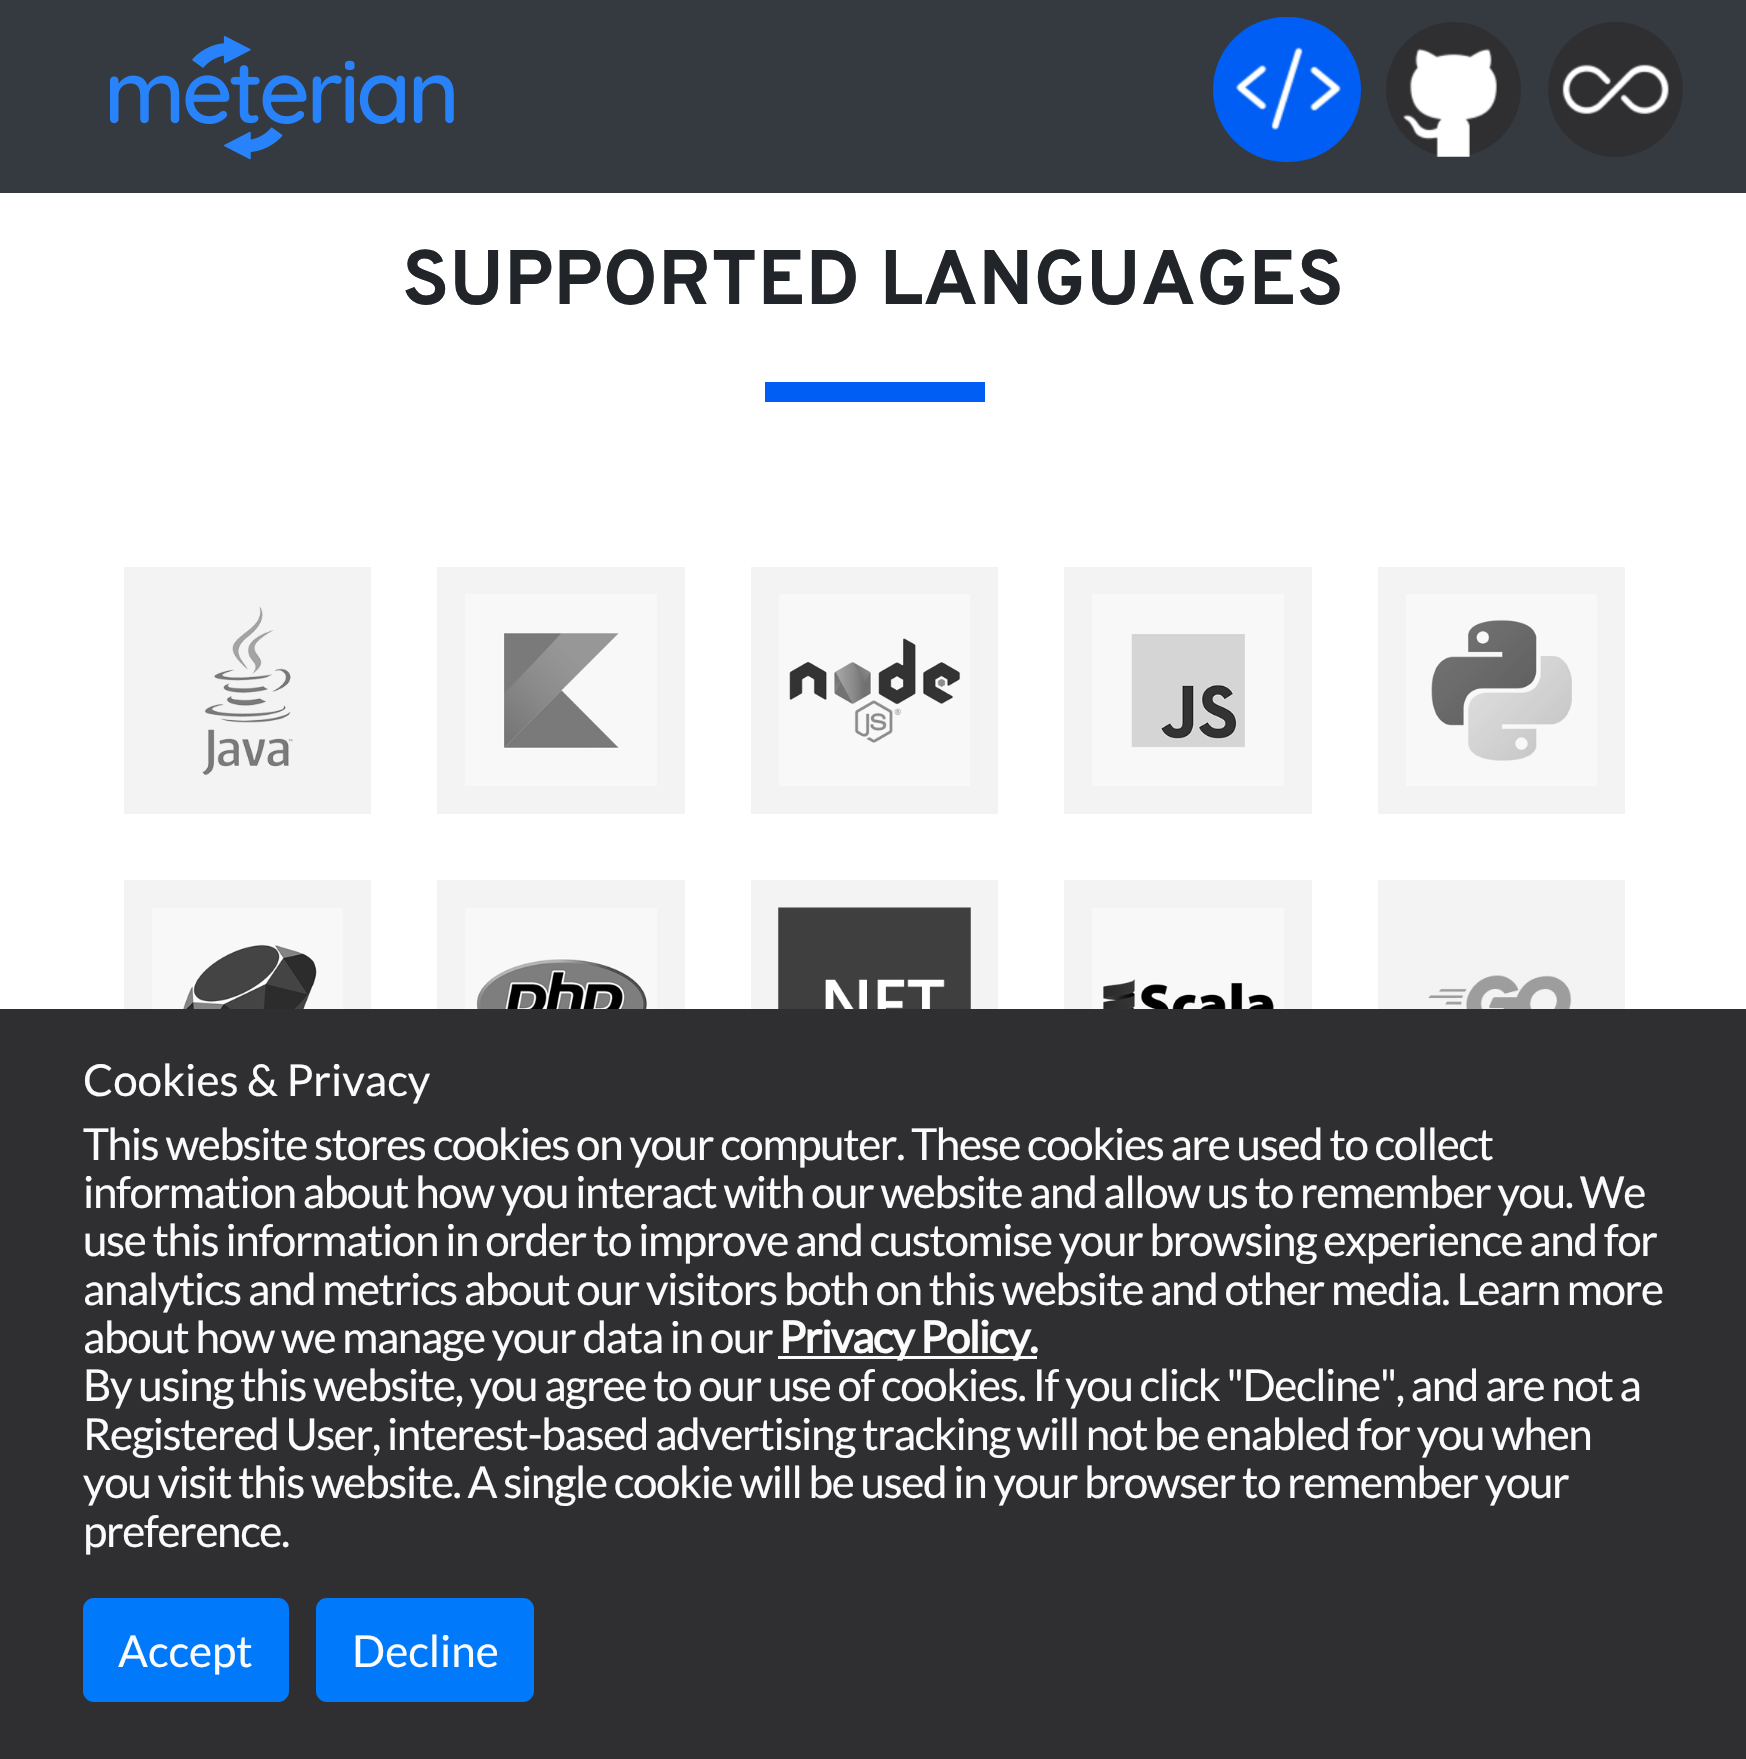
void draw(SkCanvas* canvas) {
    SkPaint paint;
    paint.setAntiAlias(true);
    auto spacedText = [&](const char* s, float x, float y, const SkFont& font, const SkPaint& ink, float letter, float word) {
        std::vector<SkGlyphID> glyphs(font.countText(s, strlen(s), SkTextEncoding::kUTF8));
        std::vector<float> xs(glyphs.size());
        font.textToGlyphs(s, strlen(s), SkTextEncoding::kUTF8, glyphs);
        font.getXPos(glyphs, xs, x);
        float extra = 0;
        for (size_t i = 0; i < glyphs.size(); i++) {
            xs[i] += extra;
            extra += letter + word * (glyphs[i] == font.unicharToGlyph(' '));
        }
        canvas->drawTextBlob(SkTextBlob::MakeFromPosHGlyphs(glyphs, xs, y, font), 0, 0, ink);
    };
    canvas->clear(0xFFFFFFFF);
    paint.setColor(0xFF343A40);
    canvas->drawRect(SkRect::MakeXYWH(0, 0, 1746, 193), paint);
    canvas->drawImageRect(SkImages::DeferredFromEncodedData(SkData::MakeFromFileName("img1.png")), SkRect::MakeXYWH(110, 36, 344, 124), SkSamplingOptions());
    paint.setColor(0xFF005EF5);
    canvas->drawRoundRect(SkRect::MakeXYWH(1213, 17, 148, 145), 72.5f, 72.5f, paint);
    canvas->drawImageRect(SkImages::DeferredFromEncodedData(SkData::MakeFromFileName("img2.png")), SkRect::MakeXYWH(1235, 47, 106, 83), SkSamplingOptions());
    paint.setColor(0xFF2F2F31);
    canvas->drawCircle(1453.5f, 89.5f, 67.5f, paint);
    canvas->drawImageRect(SkImages::DeferredFromEncodedData(SkData::MakeFromFileName("img3.png")), SkRect::MakeXYWH(1402, 48, 95, 109), SkSamplingOptions());
    canvas->drawCircle(1615.5f, 89.5f, 67.5f, paint);
    canvas->drawImageRect(SkImages::DeferredFromEncodedData(SkData::MakeFromFileName("img4.png")), SkRect::MakeXYWH(1562, 64, 107, 51), SkSamplingOptions());
    SkFont font1(fontMgr->matchFamilyStyle("Overpass", SkFontStyle::Bold()), 77);
    font1.setSubpixel(true);
    paint.setColor(0xFF212529);
    canvas->drawString("SUPPORTED LANGUAGES", 402, 304, font1, paint);
    paint.setColor(0xFF005EF5);
    canvas->drawRect(SkRect::MakeXYWH(765, 382, 220, 20), paint);
    paint.setColor(0xFFF3F3F3);
    canvas->drawRect(SkRect::MakeXYWH(124, 567, 247, 247), paint);
    canvas->drawImageRect(SkImages::DeferredFromEncodedData(SkData::MakeFromFileName("img5.png")), SkRect::MakeXYWH(202, 606, 91, 170), SkSamplingOptions());
    canvas->drawRect(SkRect::MakeXYWH(437, 567, 248, 247), paint);
    canvas->drawImageRect(SkImages::DeferredFromEncodedData(SkData::MakeFromFileName("img6.png")), SkRect::MakeXYWH(465, 594, 192, 192), SkSamplingOptions());
    canvas->drawRect(SkRect::MakeXYWH(751, 567, 247, 247), paint);
    canvas->drawImageRect(SkImages::DeferredFromEncodedData(SkData::MakeFromFileName("img7.png")), SkRect::MakeXYWH(779, 594, 191, 192), SkSamplingOptions());
    canvas->drawRect(SkRect::MakeXYWH(1064, 567, 248, 247), paint);
    canvas->drawImageRect(SkImages::DeferredFromEncodedData(SkData::MakeFromFileName("img8.png")), SkRect::MakeXYWH(1092, 594, 192, 192), SkSamplingOptions());
    canvas->drawRect(SkRect::MakeXYWH(1378, 567, 247, 247), paint);
    canvas->drawImageRect(SkImages::DeferredFromEncodedData(SkData::MakeFromFileName("img9.png")), SkRect::MakeXYWH(1406, 594, 191, 192), SkSamplingOptions());
    canvas->drawRect(SkRect::MakeXYWH(124, 880, 247, 129), paint);
    canvas->drawImageRect(SkImages::DeferredFromEncodedData(SkData::MakeFromFileName("img10.png")), SkRect::MakeXYWH(152, 908, 191, 101), SkSamplingOptions());
    canvas->drawRect(SkRect::MakeXYWH(437, 880, 248, 129), paint);
    canvas->drawImageRect(SkImages::DeferredFromEncodedData(SkData::MakeFromFileName("img11.png")), SkRect::MakeXYWH(465, 908, 192, 101), SkSamplingOptions());
    canvas->drawRect(SkRect::MakeXYWH(751, 880, 247, 129), paint);
    canvas->drawImageRect(SkImages::DeferredFromEncodedData(SkData::MakeFromFileName("img12.png")), SkRect::MakeXYWH(778, 907, 193, 102), SkSamplingOptions());
    canvas->drawRect(SkRect::MakeXYWH(1064, 880, 248, 129), paint);
    canvas->drawImageRect(SkImages::DeferredFromEncodedData(SkData::MakeFromFileName("img13.png")), SkRect::MakeXYWH(1092, 908, 192, 101), SkSamplingOptions());
    canvas->drawRect(SkRect::MakeXYWH(1378, 880, 247, 129), paint);
    canvas->drawImageRect(SkImages::DeferredFromEncodedData(SkData::MakeFromFileName("img14.png")), SkRect::MakeXYWH(1428, 975, 144, 34), SkSamplingOptions());
    paint.setColor(0xFF2F2F31);
    canvas->drawRect(SkRect::MakeXYWH(0, 1009, 1746, 750), paint);
    SkFont font2(fontMgr->matchFamilyStyle("Lato", SkFontStyle::Normal()), 44);
    font2.setSubpixel(true);
    paint.setColor(0xFFFBFBFB);
    canvas->drawString("Cookies & Privacy", 83, 1096, font2, paint);
    spacedText("This website stores cookies on your computer. These cookies are used to collect", 83, 1160, font2, paint, -1.38f, 0);
    spacedText("information about how you interact with our website and allow us to remember you. We", 83, 1208, font2, paint, -1.38f, 0);
    spacedText("use this information in order to improve and customise your browsing experience and for", 83, 1256, font2, paint, -1.38f, 0);
    spacedText("analytics and metrics about our visitors both on this website and other media. Learn more", 83, 1305, font2, paint, -1.38f, 0);
    spacedText("about how we manage your data in our", 83, 1353, font2, paint, -1.38f, 0);
    canvas->drawRect(SkRect::MakeXYWH(778, 1356, 259, 3), paint);
    SkFont font3(fontMgr->matchFamilyStyle("Lato", SkFontStyle::Bold()), 44);
    font3.setSubpixel(true);
    spacedText("Privacy Policy.", 779, 1353, font3, paint, -1.38f, 0);
    spacedText("By using this website, you agree to our use of cookies. If you click \"Decline\", and are not a", 83, 1401, font2, paint, -1.38f, 0);
    spacedText("Registered User, interest-based advertising tracking will not be enabled for you when", 83, 1450, font2, paint, -1.38f, 0);
    spacedText("you visit this website. A single cookie will be used in your browser to remember your", 83, 1498, font2, paint, -1.38f, 0);
    spacedText("preference.", 83, 1547, font2, paint, -1.38f, 0);
    paint.setColor(0xFF0179FB);
    canvas->drawRoundRect(SkRect::MakeXYWH(84.5f, 1599.5f, 203, 101), 9.5f, 9.5f, paint);
    paint.setStyle(SkPaint::kStroke_Style);
    paint.setStrokeWidth(3);
    canvas->drawRoundRect(SkRect::MakeXYWH(84.5f, 1599.5f, 203, 101), 9.5f, 9.5f, paint);
    paint.setStyle(SkPaint::kFill_Style);
    paint.setColor(0xFFFBFBFB);
    canvas->drawString("Accept", 118, 1667, font2, paint);
    paint.setColor(0xFF0179FB);
    canvas->drawRoundRect(SkRect::MakeXYWH(317.5f, 1599.5f, 215, 101), 9.5f, 9.5f, paint);
    paint.setStyle(SkPaint::kStroke_Style);
    canvas->drawRoundRect(SkRect::MakeXYWH(317.5f, 1599.5f, 215, 101), 9.5f, 9.5f, paint);
    paint.setStyle(SkPaint::kFill_Style);
    paint.setColor(0xFFFBFBFB);
    canvas->drawString("Decline", 352, 1667, font2, paint);
}
